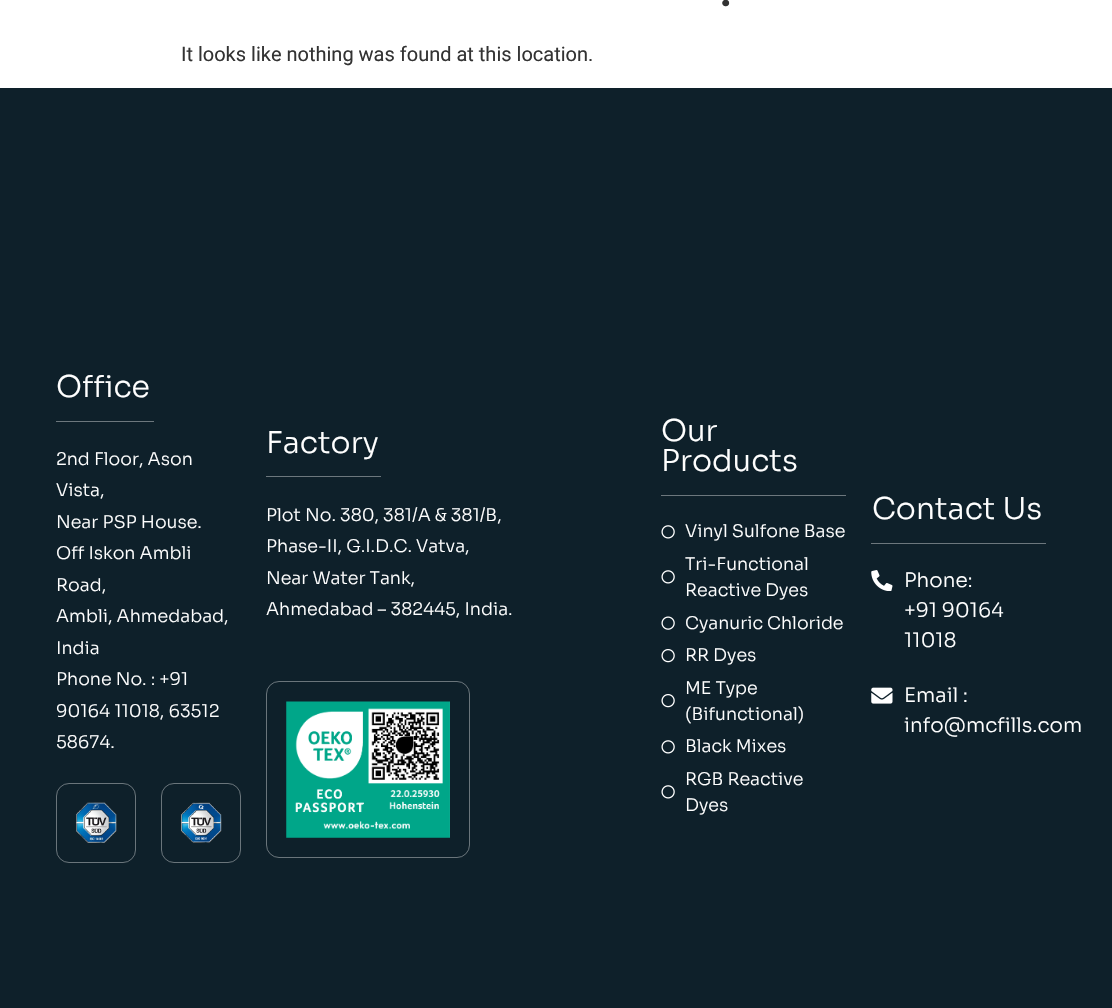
void draw(SkCanvas* canvas) {
    SkPaint paint;
    paint.setAntiAlias(true);
    canvas->clear(0xFFFFFFFF);
    SkFont font1(fontMgr->matchFamilyStyle("Roboto", SkFontStyle(500, SkFontStyle::kNormal_Width, SkFontStyle::kUpright_Slant)), 50);
    font1.setSubpixel(true);
    paint.setColor(0xFF333333);
    canvas->drawString(".", 719, 6, font1, paint);
    SkFont font2(fontMgr->matchFamilyStyle("Roboto", SkFontStyle::Normal()), 20);
    font2.setSubpixel(true);
    canvas->drawString("It looks like nothing was found at this location.", 181, 61, font2, paint);
    paint.setColor(0xFF0E202A);
    canvas->drawRect(SkRect::MakeXYWH(0, 88, 1112, 920), paint);
    SkFont font3(fontMgr->matchFamilyStyle("Sora", SkFontStyle(300, SkFontStyle::kNormal_Width, SkFontStyle::kUpright_Slant)), 30);
    font3.setSubpixel(true);
    paint.setColor(0xFFFFFFFF);
    canvas->drawString("Office", 56, 397, font3, paint);
    paint.setColor(0xFF6C777D);
    canvas->drawRect(SkRect::MakeXYWH(56, 421, 98, 1), paint);
    SkFont font4(fontMgr->matchFamilyStyle("Sora", SkFontStyle(300, SkFontStyle::kNormal_Width, SkFontStyle::kUpright_Slant)), 17.5f);
    font4.setSubpixel(true);
    paint.setColor(0xFFFFFFFF);
    canvas->drawString("2nd Floor, Ason", 56, 465, font4, paint);
    canvas->drawString("Vista,", 56, 496, font4, paint);
    canvas->drawString("Near PSP House.", 56, 528, font4, paint);
    canvas->drawString("Off Iskon Ambli", 56, 559, font4, paint);
    canvas->drawString("Road,", 56, 591, font4, paint);
    canvas->drawString("Ambli, Ahmedabad,", 56, 622, font4, paint);
    canvas->drawString("India", 56, 654, font4, paint);
    canvas->drawString("Phone No. : +91", 56, 685, font4, paint);
    canvas->drawString("90164 11018, 63512", 56, 717, font4, paint);
    canvas->drawString("58674.", 56, 748, font4, paint);
    paint.setStyle(SkPaint::kStroke_Style);
    paint.setStrokeWidth(1);
    paint.setColor(0xFF6A757B);
    canvas->drawRoundRect(SkRect::MakeXYWH(56.5f, 783.5f, 79, 79), 12.5f, 12.5f, paint);
    canvas->drawImageRect(SkImages::DeferredFromEncodedData(SkData::MakeFromFileName("img1.png")), SkRect::MakeXYWH(76, 802, 41, 41), SkSamplingOptions());
    canvas->drawRoundRect(SkRect::MakeXYWH(161.5f, 783.5f, 79, 79), 12.5f, 12.5f, paint);
    canvas->drawImageRect(SkImages::DeferredFromEncodedData(SkData::MakeFromFileName("img2.png")), SkRect::MakeXYWH(181, 802, 41, 41), SkSamplingOptions());
    paint.setStyle(SkPaint::kFill_Style);
    paint.setColor(0xFFFFFFFF);
    canvas->drawString("Factory", 266, 453, font3, paint);
    paint.setColor(0xFF6C777D);
    canvas->drawRect(SkRect::MakeXYWH(266, 476, 115, 1), paint);
    paint.setColor(0xFFFFFFFF);
    canvas->drawString("Plot No. 380, 381/A & 381/B,", 266, 521, font4, paint);
    canvas->drawString("Phase-II, G.I.D.C. Vatva,", 266, 552, font4, paint);
    canvas->drawString("Near Water Tank,", 266, 584, font4, paint);
    canvas->drawString("Ahmedabad – 382445, India.", 266, 615, font4, paint);
    paint.setStyle(SkPaint::kStroke_Style);
    paint.setColor(0xFF6A757B);
    canvas->drawRoundRect(SkRect::MakeXYWH(266.5f, 681.5f, 203, 176), 12.5f, 12.5f, paint);
    canvas->drawImageRect(SkImages::DeferredFromEncodedData(SkData::MakeFromFileName("img3.png")), SkRect::MakeXYWH(286, 701, 164, 137), SkSamplingOptions());
    paint.setStyle(SkPaint::kFill_Style);
    paint.setColor(0xFFFFFFFF);
    canvas->drawString("Our", 661, 441, font3, paint);
    canvas->drawString("Products", 661, 471, font3, paint);
    paint.setColor(0xFF6C777D);
    canvas->drawRect(SkRect::MakeXYWH(661, 495, 185, 1), paint);
    canvas->drawImageRect(SkImages::DeferredFromEncodedData(SkData::MakeFromFileName("img4.png")), SkRect::MakeXYWH(661, 525, 14, 14), SkSamplingOptions());
    paint.setColor(0xFFFFFFFF);
    canvas->drawString("Vinyl Sulfone Base", 685, 537, font4, paint);
    canvas->drawImageRect(SkImages::DeferredFromEncodedData(SkData::MakeFromFileName("img4.png")), SkRect::MakeXYWH(661, 570, 14, 14), SkSamplingOptions());
    canvas->drawString("Tri-Functional", 685, 570, font4, paint);
    canvas->drawString("Reactive Dyes", 685, 596, font4, paint);
    canvas->drawImageRect(SkImages::DeferredFromEncodedData(SkData::MakeFromFileName("img5.png")), SkRect::MakeXYWH(661, 616, 14, 14), SkSamplingOptions());
    canvas->drawString("Cyanuric Chloride", 685, 629, font4, paint);
    canvas->drawImageRect(SkImages::DeferredFromEncodedData(SkData::MakeFromFileName("img6.png")), SkRect::MakeXYWH(661, 649, 14, 14), SkSamplingOptions());
    canvas->drawString("RR Dyes", 685, 661, font4, paint);
    canvas->drawImageRect(SkImages::DeferredFromEncodedData(SkData::MakeFromFileName("img6.png")), SkRect::MakeXYWH(661, 694, 14, 14), SkSamplingOptions());
    canvas->drawString("ME Type", 685, 694, font4, paint);
    canvas->drawString("(Bifunctional)", 685, 720, font4, paint);
    canvas->drawImageRect(SkImages::DeferredFromEncodedData(SkData::MakeFromFileName("img4.png")), SkRect::MakeXYWH(661, 740, 14, 14), SkSamplingOptions());
    canvas->drawString("Black Mixes", 685, 752, font4, paint);
    canvas->drawImageRect(SkImages::DeferredFromEncodedData(SkData::MakeFromFileName("img4.png")), SkRect::MakeXYWH(661, 785, 14, 14), SkSamplingOptions());
    canvas->drawString("RGB Reactive", 685, 785, font4, paint);
    canvas->drawString("Dyes", 685, 811, font4, paint);
    canvas->drawString("Contact Us", 872, 519, font3, paint);
    paint.setColor(0xFF6C777D);
    canvas->drawRect(SkRect::MakeXYWH(871, 543, 175, 1), paint);
    canvas->drawImageRect(SkImages::DeferredFromEncodedData(SkData::MakeFromFileName("img7.png")), SkRect::MakeXYWH(871, 570, 22, 21), SkSamplingOptions());
    SkFont font5(fontMgr->matchFamilyStyle("Sora", SkFontStyle(300, SkFontStyle::kNormal_Width, SkFontStyle::kUpright_Slant)), 20);
    font5.setSubpixel(true);
    paint.setColor(0xFFFFFFFF);
    canvas->drawString("Phone:", 904, 587, font5, paint);
    canvas->drawString("+91 90164", 904, 617, font5, paint);
    canvas->drawString("11018", 904, 647, font5, paint);
    canvas->drawImageRect(SkImages::DeferredFromEncodedData(SkData::MakeFromFileName("img8.png")), SkRect::MakeXYWH(871, 687, 22, 17), SkSamplingOptions());
    canvas->drawString("Email :", 904, 702, font5, paint);
    canvas->drawString("info@mcfills.com", 904, 732, font5, paint);
}
